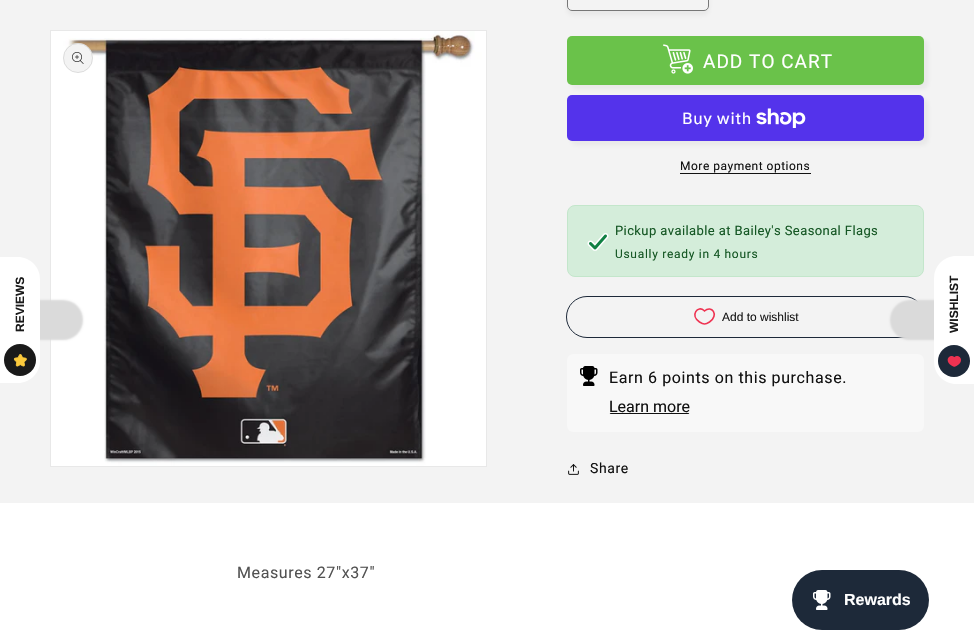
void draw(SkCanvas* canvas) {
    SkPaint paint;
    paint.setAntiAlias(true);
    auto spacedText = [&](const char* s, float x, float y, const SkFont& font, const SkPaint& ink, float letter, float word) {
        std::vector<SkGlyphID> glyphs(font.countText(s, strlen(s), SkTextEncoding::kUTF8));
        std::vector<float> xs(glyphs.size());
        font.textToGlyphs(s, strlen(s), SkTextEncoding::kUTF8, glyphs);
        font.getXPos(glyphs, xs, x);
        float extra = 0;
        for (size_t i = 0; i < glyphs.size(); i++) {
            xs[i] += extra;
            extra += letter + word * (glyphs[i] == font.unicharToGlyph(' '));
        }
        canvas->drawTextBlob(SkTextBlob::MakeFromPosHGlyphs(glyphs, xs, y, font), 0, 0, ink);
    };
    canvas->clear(0xFFFFFFFF);
    paint.setColor(0xFFF3F3F3);
    canvas->drawRect(SkRect::MakeXYWH(0, 0, 974, 503), paint);
    paint.setStyle(SkPaint::kStroke_Style);
    paint.setStrokeWidth(1);
    paint.setColor(0xFFE8E8E8);
    canvas->drawRect(SkRect::MakeXYWH(50.5f, 30.5f, 436, 436), paint);
    canvas->drawImageRect(SkImages::DeferredFromEncodedData(SkData::MakeFromFileName("img1.png")), SkRect::MakeXYWH(51, 31, 435, 435), SkSamplingOptions());
    paint.setStyle(SkPaint::kFill_Style);
    paint.setColor(0xFFF3F3F3);
    canvas->drawCircle(78, 58, 15, paint);
    paint.setStyle(SkPaint::kStroke_Style);
    paint.setColor(0x1A121212);
    canvas->drawCircle(78, 58, 14.5f, paint);
    canvas->drawImageRect(SkImages::DeferredFromEncodedData(SkData::MakeFromFileName("img2.png")), SkRect::MakeXYWH(72, 52, 12, 12), SkSamplingOptions());
    paint.setStyle(SkPaint::kFill_Style);
    paint.setColor(0x0D121212);
    paint.setMaskFilter(SkMaskFilter::MakeBlur(kNormal_SkBlurStyle, 2.5f));
    canvas->drawRoundRect(SkRect::MakeXYWH(567, -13, 142, 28), 5, 5, paint);
    paint.setMaskFilter(nullptr);
    paint.setColor(0xFFF3F3F3);
    canvas->drawRoundRect(SkRect::MakeXYWH(567.5f, -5.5f, 141, 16), 4.5f, 4.5f, paint);
    paint.setStyle(SkPaint::kStroke_Style);
    paint.setColor(0xFF777777);
    canvas->drawRoundRect(SkRect::MakeXYWH(567.5f, -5.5f, 141, 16), 4.5f, 4.5f, paint);
    paint.setStyle(SkPaint::kFill_Style);
    paint.setColor(0x0D121212);
    paint.setMaskFilter(SkMaskFilter::MakeBlur(kNormal_SkBlurStyle, 2.5f));
    canvas->drawRoundRect(SkRect::MakeXYWH(571, 40, 357, 49), 5, 5, paint);
    paint.setMaskFilter(nullptr);
    paint.setColor(0xFF6AC24A);
    canvas->drawRoundRect(SkRect::MakeXYWH(567, 36, 357, 49), 5, 5, paint);
    canvas->drawImageRect(SkImages::DeferredFromEncodedData(SkData::MakeFromFileName("img3.png")), SkRect::MakeXYWH(663, 44, 30, 30), SkSamplingOptions());
    SkFont font1(fontMgr->matchFamilyStyle("Roboto", SkFontStyle::Normal()), 19);
    font1.setSubpixel(true);
    paint.setColor(0xFFFFFFFF);
    spacedText("ADD TO CART", 703, 68, font1, paint, 1, 0);
    paint.setColor(0x0D121212);
    paint.setMaskFilter(SkMaskFilter::MakeBlur(kNormal_SkBlurStyle, 2.5f));
    canvas->drawRoundRect(SkRect::MakeXYWH(571, 99, 357, 46), 5, 5, paint);
    paint.setMaskFilter(nullptr);
    paint.setColor(0xFF5433EB);
    canvas->drawRoundRect(SkRect::MakeXYWH(567, 95, 357, 46), 5, 5, paint);
    SkFont font2(fontMgr->matchFamilyStyle("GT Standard", SkFontStyle::Normal()), 16);
    font2.setSubpixel(true);
    paint.setColor(0xFFFFFFFF);
    spacedText("Buy with", 682, 124, font2, paint, 0.6f, 0);
    canvas->drawImageRect(SkImages::DeferredFromEncodedData(SkData::MakeFromFileName("img4.png")), SkRect::MakeXYWH(756, 108, 50, 20), SkSamplingOptions());
    SkFont font3(fontMgr->matchFamilyStyle("Roboto", SkFontStyle::Normal()), 12);
    font3.setSubpixel(true);
    paint.setColor(0xFF121212);
    spacedText("More payment options", 680, 170, font3, paint, 0.5f, 0);
    canvas->drawRect(SkRect::MakeXYWH(680, 173, 131, 1), paint);
    paint.setColor(0xFFD4EDDA);
    canvas->drawRoundRect(SkRect::MakeXYWH(567.5f, 205.5f, 356, 71), 7.5f, 7.5f, paint);
    paint.setStyle(SkPaint::kStroke_Style);
    paint.setColor(0xFFC3E6CB);
    canvas->drawRoundRect(SkRect::MakeXYWH(567.5f, 205.5f, 356, 71), 7.5f, 7.5f, paint);
    canvas->drawImageRect(SkImages::DeferredFromEncodedData(SkData::MakeFromFileName("img5.png")), SkRect::MakeXYWH(587, 233, 22, 18), SkSamplingOptions());
    SkFont font4(fontMgr->matchFamilyStyle("Roboto", SkFontStyle::Normal()), 13);
    font4.setSubpixel(true);
    paint.setStyle(SkPaint::kFill_Style);
    paint.setColor(0xFF155724);
    spacedText("Pickup available at Bailey's Seasonal Flags", 615, 235, font4, paint, 0.4f, 0);
    spacedText("Usually ready in 4 hours", 615, 258, font3, paint, 0.7f, 0);
    paint.setStyle(SkPaint::kStroke_Style);
    paint.setColor(0xFF1D2939);
    canvas->drawRoundRect(SkRect::MakeXYWH(566.5f, 296.5f, 358, 41), 20.5f, 20.5f, paint);
    paint.setStrokeWidth(1.6f);
    paint.setColor(0xFFEF3251);
    canvas->drawPath(SkPathBuilder().moveTo(704, 310.5f).lineTo(704.5f, 311).cubicTo(711.5f, 304.5f, 719.5f, 315, 709.5f, 322).cubicTo(708, 323, 706, 324, 704.5f, 324).cubicTo(703, 324, 701, 323, 699.5f, 322).cubicTo(689.5f, 315, 698, 305, 704, 310.5f).close().detach(), paint);
    SkFont font5(fontMgr->matchFamilyStyle("Liberation Sans", SkFontStyle::Normal()), 12);
    font5.setSubpixel(true);
    paint.setStyle(SkPaint::kFill_Style);
    paint.setColor(0xFF1A1A1A);
    canvas->drawString("Add to wishlist", 722, 321, font5, paint);
    paint.setColor(0xFFF8F8F8);
    canvas->drawRoundRect(SkRect::MakeXYWH(567, 354, 357, 78), 6, 6, paint);
    canvas->drawImageRect(SkImages::DeferredFromEncodedData(SkData::MakeFromFileName("img6.png")), SkRect::MakeXYWH(580, 366, 18, 20), SkSamplingOptions());
    SkFont font6(fontMgr->matchFamilyStyle("Roboto", SkFontStyle::Normal()), 16);
    font6.setSubpixel(true);
    paint.setColor(0xFF121212);
    spacedText("Earn 6 points on this purchase.", 609, 383, font6, paint, 0.6f, 0);
    canvas->drawString("Learn more", 609, 412, font6, paint);
    canvas->save();
    canvas->clipPath(SkPathBuilder().moveTo(613, 399).lineTo(686, 399).cubicTo(688, 399, 690, 401, 690, 403).lineTo(690, 411).cubicTo(690, 413, 688, 415, 686, 415).lineTo(613, 415).cubicTo(611, 415, 609, 413, 609, 411).lineTo(609, 403).cubicTo(609, 401, 611, 399, 613, 399).close().detach(), true);
    canvas->drawRect(SkRect::MakeXYWH(609, 413, 81, 1), paint);
    canvas->restore();
    canvas->drawImageRect(SkImages::DeferredFromEncodedData(SkData::MakeFromFileName("img7.png")), SkRect::MakeXYWH(568, 464, 11, 11), SkSamplingOptions());
    SkFont font7(fontMgr->matchFamilyStyle("Roboto", SkFontStyle::Normal()), 14);
    font7.setSubpixel(true);
    spacedText("Share", 590, 473, font7, paint, 0.6f, 0);
    paint.setColor(0xFF525252);
    spacedText("Measures 27\"x37\"", 237, 578, font6, paint, 0.6f, 0);
    paint.setColor(0xFFDADADA);
    paint.setMaskFilter(SkMaskFilter::MakeBlur(kNormal_SkBlurStyle, 1));
    canvas->drawRoundRect(SkRect::MakeXYWH(-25, 300, 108, 40), 22, 22, paint);
    paint.setMaskFilter(nullptr);
    paint.setColor(0xFFFFFFFF);
    canvas->drawPath(SkPathBuilder().moveTo(0, 383).lineTo(0, 257).lineTo(18, 257).cubicTo(30, 257, 40, 267, 40, 279).lineTo(40, 361).cubicTo(40, 373, 30, 383, 18, 383).close().detach(), paint);
    SkFont font8(fontMgr->matchFamilyStyle("Liberation Sans", SkFontStyle::Bold()), 12);
    font8.setSubpixel(true);
    paint.setColor(0xFF1A1A1A);
    canvas->save();
    canvas->rotate(-90, 24, 332);
    canvas->drawString("REVIEWS", 24, 332, font8, paint);
    canvas->restore();
    canvas->drawCircle(20, 360, 16, paint);
    canvas->drawImageRect(SkImages::DeferredFromEncodedData(SkData::MakeFromFileName("img8.png")), SkRect::MakeXYWH(13, 354, 14, 13), SkSamplingOptions());
    paint.setColor(0xFFDADADA);
    paint.setMaskFilter(SkMaskFilter::MakeBlur(kNormal_SkBlurStyle, 1));
    canvas->drawRoundRect(SkRect::MakeXYWH(890, 300, 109, 40), 22, 22, paint);
    paint.setMaskFilter(nullptr);
    paint.setColor(0xFFFFFFFF);
    canvas->drawPath(SkPathBuilder().moveTo(934, 362).lineTo(934, 278).cubicTo(934, 266, 944, 256, 956, 256).lineTo(974, 256).lineTo(974, 384).lineTo(956, 384).cubicTo(944, 384, 934, 374, 934, 362).close().detach(), paint);
    paint.setColor(0xFF1A1A1A);
    canvas->save();
    canvas->rotate(-90, 958, 333);
    canvas->drawString("WISHLIST", 958, 333, font8, paint);
    canvas->restore();
    paint.setColor(0xFF1D2939);
    canvas->drawCircle(954, 361, 16, paint);
    canvas->drawImageRect(SkImages::DeferredFromEncodedData(SkData::MakeFromFileName("img9.png")), SkRect::MakeXYWH(947, 356, 14, 11), SkSamplingOptions());
    canvas->drawRoundRect(SkRect::MakeXYWH(792, 570, 137, 60), 30, 30, paint);
    canvas->drawImageRect(SkImages::DeferredFromEncodedData(SkData::MakeFromFileName("img10.png")), SkRect::MakeXYWH(813, 590, 18, 20), SkSamplingOptions());
    SkFont font9(fontMgr->matchFamilyStyle("Liberation Sans", SkFontStyle::Bold()), 16);
    font9.setSubpixel(true);
    paint.setColor(0xFFFFFFFF);
    canvas->drawString("Rewards", 844, 605, font9, paint);
}
